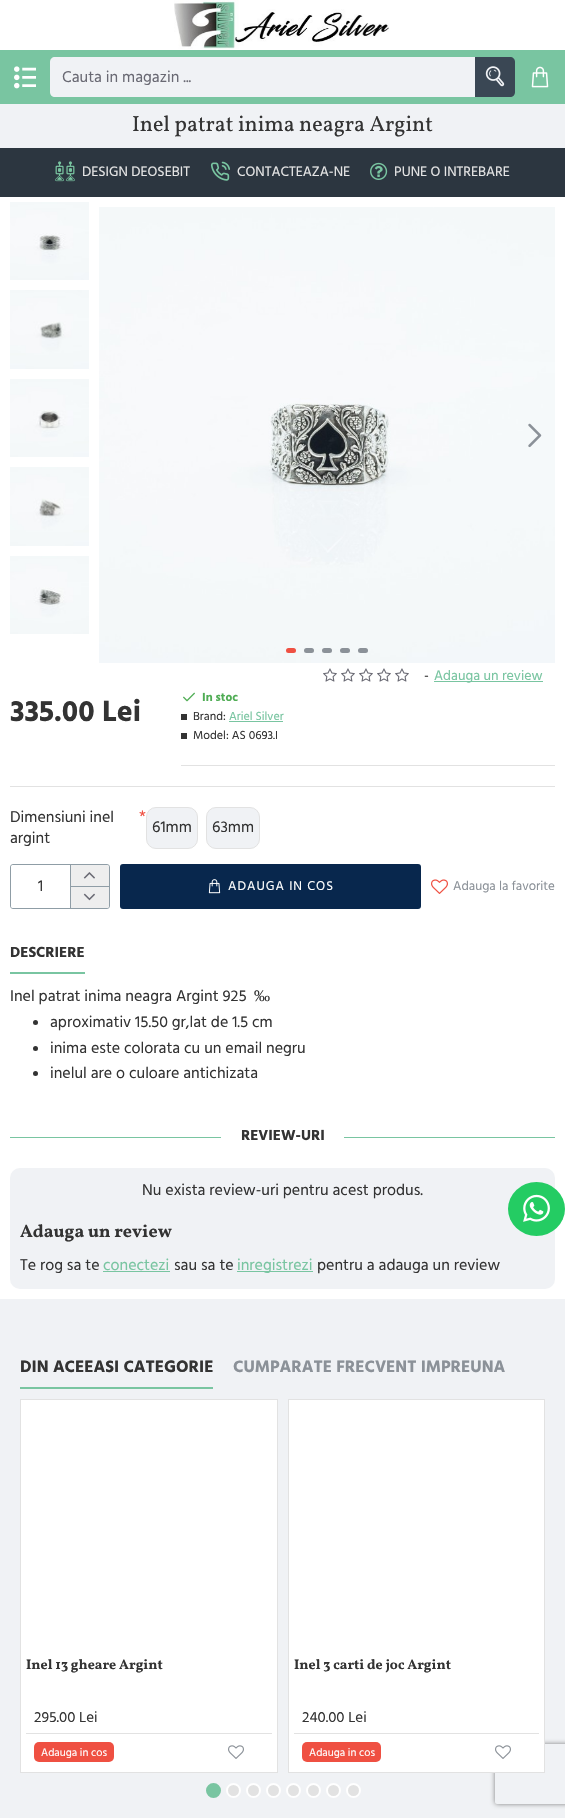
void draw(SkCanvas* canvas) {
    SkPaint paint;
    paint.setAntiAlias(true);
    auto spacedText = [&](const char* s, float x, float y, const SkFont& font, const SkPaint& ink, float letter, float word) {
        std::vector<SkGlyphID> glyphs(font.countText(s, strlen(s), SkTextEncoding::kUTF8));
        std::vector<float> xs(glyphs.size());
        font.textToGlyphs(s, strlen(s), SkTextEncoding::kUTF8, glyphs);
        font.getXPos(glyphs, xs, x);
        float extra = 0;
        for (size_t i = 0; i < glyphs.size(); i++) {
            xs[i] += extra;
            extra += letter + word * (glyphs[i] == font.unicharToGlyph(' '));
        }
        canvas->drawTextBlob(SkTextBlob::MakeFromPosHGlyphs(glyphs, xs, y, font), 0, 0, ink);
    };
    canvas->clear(0xFFFFFFFF);
    canvas->drawImageRect(SkImages::DeferredFromEncodedData(SkData::MakeFromFileName("img1.png")), SkRect::MakeXYWH(174, 0, 215, 49), SkSamplingOptions());
    paint.setColor(0xFF79C5A1);
    canvas->drawRect(SkRect::MakeXYWH(0, 50, 565, 54), paint);
    canvas->drawImageRect(SkImages::DeferredFromEncodedData(SkData::MakeFromFileName("img2.png")), SkRect::MakeXYWH(14, 66, 22, 23), SkSamplingOptions());
    paint.setColor(0xFFF0F2F5);
    canvas->drawPath(SkPathBuilder().moveTo(55, 57).lineTo(475, 57).lineTo(475, 97).lineTo(55, 97).cubicTo(52, 97, 50, 95, 50, 92).lineTo(50, 62).cubicTo(50, 59, 52, 57, 55, 57).close().detach(), paint);
    SkFont font1(fontMgr->matchFamilyStyle("Hind Madurai", SkFontStyle::Normal()), 16);
    font1.setSubpixel(true);
    paint.setColor(0xFF696973);
    canvas->drawString("Cauta in magazin ...", 62, 82, font1, paint);
    paint.setColor(0xFF3A4754);
    canvas->drawPath(SkPathBuilder().moveTo(475, 57).lineTo(510, 57).cubicTo(513, 57, 515, 59, 515, 62).lineTo(515, 92).cubicTo(515, 95, 513, 97, 510, 97).lineTo(475, 97).close().detach(), paint);
    canvas->drawImageRect(SkImages::DeferredFromEncodedData(SkData::MakeFromFileName("img3.png")), SkRect::MakeXYWH(485, 66, 20, 21), SkSamplingOptions());
    canvas->drawImageRect(SkImages::DeferredFromEncodedData(SkData::MakeFromFileName("img4.png")), SkRect::MakeXYWH(531, 66, 18, 22), SkSamplingOptions());
    paint.setColor(0xFFF0F2F5);
    canvas->drawRect(SkRect::MakeXYWH(0, 104, 565, 44), paint);
    SkFont font2(fontMgr->matchFamilyStyle("Vollkorn", SkFontStyle::Normal()), 22);
    font2.setSubpixel(true);
    paint.setColor(0xFF333333);
    canvas->drawString("Inel patrat inima neagra Argint", 132, 131, font2, paint);
    paint.setColor(0xFF2C3640);
    canvas->drawRect(SkRect::MakeXYWH(0, 148, 565, 49), paint);
    canvas->drawImageRect(SkImages::DeferredFromEncodedData(SkData::MakeFromFileName("img5.png")), SkRect::MakeXYWH(55, 161, 20, 21), SkSamplingOptions());
    SkFont font3(fontMgr->matchFamilyStyle("Hind Madurai", SkFontStyle::Normal()), 14);
    font3.setSubpixel(true);
    paint.setColor(0xFFE6E6E6);
    canvas->drawString("DESIGN DEOSEBIT", 82, 176, font3, paint);
    canvas->drawImageRect(SkImages::DeferredFromEncodedData(SkData::MakeFromFileName("img6.png")), SkRect::MakeXYWH(210, 161, 20, 20), SkSamplingOptions());
    canvas->drawString("CONTACTEAZA-NE", 237, 176, font3, paint);
    canvas->drawImageRect(SkImages::DeferredFromEncodedData(SkData::MakeFromFileName("img7.png")), SkRect::MakeXYWH(370, 162, 18, 18), SkSamplingOptions());
    canvas->drawString("PUNE O INTREBARE", 394, 176, font3, paint);
    canvas->drawImageRect(SkImages::DeferredFromEncodedData(SkData::MakeFromFileName("img8.png")), SkRect::MakeXYWH(10, 202, 79, 78), SkSamplingOptions());
    canvas->drawImageRect(SkImages::DeferredFromEncodedData(SkData::MakeFromFileName("img9.png")), SkRect::MakeXYWH(10, 290, 79, 79), SkSamplingOptions());
    canvas->drawImageRect(SkImages::DeferredFromEncodedData(SkData::MakeFromFileName("img10.png")), SkRect::MakeXYWH(10, 379, 79, 78), SkSamplingOptions());
    canvas->drawImageRect(SkImages::DeferredFromEncodedData(SkData::MakeFromFileName("img11.png")), SkRect::MakeXYWH(10, 467, 79, 79), SkSamplingOptions());
    canvas->drawImageRect(SkImages::DeferredFromEncodedData(SkData::MakeFromFileName("img12.png")), SkRect::MakeXYWH(10, 556, 79, 78), SkSamplingOptions());
    canvas->drawImageRect(SkImages::DeferredFromEncodedData(SkData::MakeFromFileName("img13.png")), SkRect::MakeXYWH(99, 207, 456, 456), SkSamplingOptions());
    canvas->drawImageRect(SkImages::DeferredFromEncodedData(SkData::MakeFromFileName("img14.png")), SkRect::MakeXYWH(528, 423, 14, 25), SkSamplingOptions());
    paint.setColor(0xFFEF5042);
    canvas->drawRoundRect(SkRect::MakeXYWH(286, 648, 10, 5), 2.5f, 2.5f, paint);
    paint.setColor(0xFF8B9198);
    canvas->drawRoundRect(SkRect::MakeXYWH(304, 648, 10, 5), 2.5f, 2.5f, paint);
    canvas->drawRoundRect(SkRect::MakeXYWH(322, 648, 10, 5), 2.5f, 2.5f, paint);
    canvas->drawRoundRect(SkRect::MakeXYWH(340, 648, 10, 5), 2.5f, 2.5f, paint);
    canvas->drawRoundRect(SkRect::MakeXYWH(358, 648, 10, 5), 2.5f, 2.5f, paint);
    canvas->drawImageRect(SkImages::DeferredFromEncodedData(SkData::MakeFromFileName("img15.png")), SkRect::MakeXYWH(323, 668, 14, 14), SkSamplingOptions());
    canvas->drawImageRect(SkImages::DeferredFromEncodedData(SkData::MakeFromFileName("img15.png")), SkRect::MakeXYWH(341, 668, 14, 14), SkSamplingOptions());
    canvas->drawImageRect(SkImages::DeferredFromEncodedData(SkData::MakeFromFileName("img15.png")), SkRect::MakeXYWH(359, 668, 14, 14), SkSamplingOptions());
    canvas->drawImageRect(SkImages::DeferredFromEncodedData(SkData::MakeFromFileName("img15.png")), SkRect::MakeXYWH(377, 668, 14, 14), SkSamplingOptions());
    canvas->drawImageRect(SkImages::DeferredFromEncodedData(SkData::MakeFromFileName("img15.png")), SkRect::MakeXYWH(395, 668, 14, 14), SkSamplingOptions());
    paint.setColor(0xFF333333);
    canvas->drawString("-", 424, 680, font3, paint);
    paint.setColor(0xFF79C5A1);
    canvas->drawRect(SkRect::MakeXYWH(434, 681, 109, 1), paint);
    canvas->drawString("Adauga un review", 434, 680, font3, paint);
    SkFont font4(fontMgr->matchFamilyStyle("Hind Madurai", SkFontStyle::Bold()), 30);
    font4.setSubpixel(true);
    paint.setColor(0xFF333333);
    canvas->drawString("335.00 Lei", 10, 721, font4, paint);
    paint.setColor(0xFFE2E2E2);
    canvas->drawRect(SkRect::MakeXYWH(181, 765, 374, 1), paint);
    canvas->drawImageRect(SkImages::DeferredFromEncodedData(SkData::MakeFromFileName("img16.png")), SkRect::MakeXYWH(183, 692, 12, 10), SkSamplingOptions());
    SkFont font5(fontMgr->matchFamilyStyle("Hind Madurai", SkFontStyle::Bold()), 12);
    font5.setSubpixel(true);
    paint.setColor(0xFF50AD55);
    canvas->drawString("In stoc", 202, 701, font5, paint);
    paint.setColor(0xFF333333);
    canvas->drawRect(SkRect::MakeXYWH(181, 714, 6, 6), paint);
    SkFont font6(fontMgr->matchFamilyStyle("Hind Madurai", SkFontStyle::Normal()), 12);
    font6.setSubpixel(true);
    canvas->drawString("Brand:", 193, 720, font6, paint);
    paint.setColor(0xFF79C5A1);
    canvas->drawString("Ariel Silver", 229, 720, font6, paint);
    canvas->drawRect(SkRect::MakeXYWH(229, 721, 54, 1), paint);
    paint.setColor(0xFF333333);
    canvas->drawRect(SkRect::MakeXYWH(181, 733, 6, 6), paint);
    canvas->drawString("Model: AS 0693.I", 193, 739, font6, paint);
    paint.setColor(0xFFE2E2E2);
    canvas->drawRect(SkRect::MakeXYWH(10, 786, 545, 1), paint);
    paint.setColor(0xFF333333);
    canvas->drawString("Dimensiuni inel", 10, 822, font1, paint);
    SkFont font7(fontMgr->matchFamilyStyle("Hind Madurai", SkFontStyle::Normal()), 17);
    font7.setSubpixel(true);
    paint.setColor(0xFFEF5042);
    canvas->drawString("*", 139, 822, font7, paint);
    paint.setColor(0xFF333333);
    canvas->drawString("argint", 10, 843, font1, paint);
    paint.setColor(0xFFF0F2F5);
    canvas->drawRoundRect(SkRect::MakeXYWH(146.5f, 807.5f, 51, 41), 9.5f, 9.5f, paint);
    paint.setStyle(SkPaint::kStroke_Style);
    paint.setStrokeWidth(1);
    paint.setColor(0xFFE2E2E2);
    canvas->drawRoundRect(SkRect::MakeXYWH(146.5f, 807.5f, 51, 41), 9.5f, 9.5f, paint);
    paint.setStyle(SkPaint::kFill_Style);
    paint.setColor(0xFF333333);
    canvas->drawString("61mm", 152, 832, font1, paint);
    paint.setColor(0xFFF0F2F5);
    canvas->drawRoundRect(SkRect::MakeXYWH(206.5f, 807.5f, 53, 41), 9.5f, 9.5f, paint);
    paint.setStyle(SkPaint::kStroke_Style);
    paint.setColor(0xFFE2E2E2);
    canvas->drawRoundRect(SkRect::MakeXYWH(206.5f, 807.5f, 53, 41), 9.5f, 9.5f, paint);
    paint.setStyle(SkPaint::kFill_Style);
    paint.setColor(0xFF333333);
    canvas->drawString("63mm", 212, 832, font1, paint);
    paint.setStyle(SkPaint::kStroke_Style);
    paint.setColor(0xFF8F9DA6);
    canvas->drawRoundRect(SkRect::MakeXYWH(10.5f, 864.5f, 99, 44), 2.5f, 2.5f, paint);
    paint.setStyle(SkPaint::kFill_Style);
    paint.setColor(0xFFFFFFFF);
    canvas->drawPath(SkPathBuilder().moveTo(13, 865).lineTo(70, 865).lineTo(70, 908).lineTo(13, 908).cubicTo(12, 908, 11, 907, 11, 906).lineTo(11, 867).cubicTo(11, 866, 12, 865, 13, 865).close().detach(), paint);
    paint.setColor(0xFF333333);
    canvas->drawString("1", 38, 891, font1, paint);
    paint.setColor(0xFFEEEEEE);
    canvas->drawPath(SkPathBuilder().moveTo(71, 865).lineTo(107, 865).cubicTo(108, 865, 109, 866, 109, 867).lineTo(109, 886).lineTo(71, 886).close().detach(), paint);
    paint.setColor(0xFF8F9DA6);
    canvas->drawRect(SkRect::MakeXYWH(70, 865, 1, 21), paint);
    canvas->drawImageRect(SkImages::DeferredFromEncodedData(SkData::MakeFromFileName("img17.png")), SkRect::MakeXYWH(83, 872, 12, 7), SkSamplingOptions());
    paint.setColor(0xFFEEEEEE);
    canvas->drawPath(SkPathBuilder().moveTo(71, 887).lineTo(109, 887).lineTo(109, 906).cubicTo(109, 907, 108, 908, 107, 908).lineTo(71, 908).close().detach(), paint);
    paint.setColor(0xFF8F9DA6);
    canvas->drawRect(SkRect::MakeXYWH(70, 886, 39, 1), paint);
    canvas->drawRect(SkRect::MakeXYWH(70, 886, 1, 22), paint);
    canvas->drawImageRect(SkImages::DeferredFromEncodedData(SkData::MakeFromFileName("img18.png")), SkRect::MakeXYWH(83, 893, 12, 8), SkSamplingOptions());
    paint.setColor(0xFF08274D);
    canvas->drawRoundRect(SkRect::MakeXYWH(120, 864, 301, 45), 3, 3, paint);
    canvas->drawImageRect(SkImages::DeferredFromEncodedData(SkData::MakeFromFileName("img19.png")), SkRect::MakeXYWH(208, 879, 13, 15), SkSamplingOptions());
    SkFont font8(fontMgr->matchFamilyStyle("Hind Madurai", SkFontStyle::Normal()), 13);
    font8.setSubpixel(true);
    paint.setColor(0xFFFFFFFF);
    spacedText("ADAUGA IN COS", 228, 890, font8, paint, 1, 0);
    canvas->drawImageRect(SkImages::DeferredFromEncodedData(SkData::MakeFromFileName("img20.png")), SkRect::MakeXYWH(431, 879, 17, 15), SkSamplingOptions());
    paint.setColor(0xFF8B9198);
    canvas->drawString("Adauga la favorite", 453, 890, font8, paint);
    paint.setColor(0xFF79C5A1);
    canvas->drawRect(SkRect::MakeXYWH(10, 972, 75, 2), paint);
    SkFont font9(fontMgr->matchFamilyStyle("Hind Madurai", SkFontStyle::Bold()), 15);
    font9.setSubpixel(true);
    paint.setColor(0xFF333333);
    canvas->drawString("DESCRIERE", 10, 957, font9, paint);
    canvas->drawString("Inel patrat inima neagra Argint 925", 10, 1001, font1, paint);
    SkFont font10(fontMgr->matchFamilyStyle("Liberation Serif", SkFontStyle::Normal()), 16);
    font10.setSubpixel(true);
    canvas->drawString("‰", 254, 1001, font10, paint);
    canvas->drawCircle(35.5f, 1022.5f, 2.5f, paint);
    canvas->drawString("aproximativ 15.50 gr,lat de 1.5 cm", 50, 1027, font1, paint);
    canvas->drawCircle(35.5f, 1048.5f, 2.5f, paint);
    canvas->drawString("inima este colorata cu un email negru", 50, 1053, font1, paint);
    canvas->drawCircle(35.5f, 1073.5f, 2.5f, paint);
    canvas->drawString("inelul are o culoare antichizata", 50, 1078, font1, paint);
    paint.setColor(0xFF79C5A1);
    canvas->drawRect(SkRect::MakeXYWH(10, 1137, 545, 1), paint);
    paint.setColor(0xFFFFFFFF);
    canvas->drawRect(SkRect::MakeXYWH(221, 1137, 123, 1), paint);
    paint.setColor(0xFF333333);
    canvas->drawString("REVIEW-URI", 241, 1140, font9, paint);
    paint.setColor(0xFFF0F2F5);
    canvas->drawRoundRect(SkRect::MakeXYWH(10, 1168, 545, 121), 10, 10, paint);
    paint.setColor(0xFF333333);
    canvas->drawString("Nu exista review-uri pentru acest produs.", 142, 1195, font1, paint);
    SkFont font11(fontMgr->matchFamilyStyle("Vollkorn", SkFontStyle::Bold()), 18);
    font11.setSubpixel(true);
    canvas->drawString("Adauga un review", 20, 1237, font11, paint);
    canvas->drawString("Te rog sa te", 20, 1270, font1, paint);
    paint.setColor(0xFF79C5A1);
    canvas->drawString("conectezi", 103, 1270, font1, paint);
    canvas->drawRect(SkRect::MakeXYWH(103, 1271, 67, 1), paint);
    paint.setColor(0xFF333333);
    canvas->drawString("sau sa te", 174, 1270, font1, paint);
    paint.setColor(0xFF79C5A1);
    canvas->drawRect(SkRect::MakeXYWH(237, 1271, 76, 1), paint);
    canvas->drawString("inregistrezi", 237, 1270, font1, paint);
    paint.setColor(0xFF333333);
    canvas->drawString("pentru a adauga un review", 317, 1270, font1, paint);
    paint.setColor(0xFFF0F2F5);
    canvas->drawRect(SkRect::MakeXYWH(0, 1299, 565, 519), paint);
    paint.setColor(0xFF79C5A1);
    canvas->drawRect(SkRect::MakeXYWH(20, 1387, 193, 2), paint);
    SkFont font12(fontMgr->matchFamilyStyle("Hind Madurai", SkFontStyle::Bold()), 17);
    font12.setSubpixel(true);
    paint.setColor(0xFF333333);
    canvas->drawString("DIN ACEEASI CATEGORIE", 20, 1372, font12, paint);
    paint.setColor(0xFF8B9198);
    canvas->drawString("CUMPARATE FRECVENT IMPREUNA", 233, 1372, font12, paint);
    paint.setColor(0xFFFFFFFF);
    canvas->drawRect(SkRect::MakeXYWH(20.5f, 1399.5f, 257, 373), paint);
    paint.setStyle(SkPaint::kStroke_Style);
    paint.setColor(0xFFE2E2E2);
    canvas->drawRect(SkRect::MakeXYWH(20.5f, 1399.5f, 257, 373), paint);
    SkFont font13(fontMgr->matchFamilyStyle("Vollkorn", SkFontStyle::Bold()), 14);
    font13.setSubpixel(true);
    paint.setStyle(SkPaint::kFill_Style);
    paint.setColor(0xFF333333);
    canvas->drawString("Inel 13 gheare Argint", 26, 1669, font13, paint);
    SkFont font14(fontMgr->matchFamilyStyle("Hind Madurai", SkFontStyle::Normal()), 15);
    font14.setSubpixel(true);
    canvas->drawString("295.00 Lei", 34, 1722, font14, paint);
    paint.setColor(0xFFE2E2E2);
    canvas->drawRect(SkRect::MakeXYWH(26, 1733, 246, 1), paint);
    paint.setColor(0xFFEF5042);
    canvas->drawRoundRect(SkRect::MakeXYWH(34, 1742, 80, 20), 5, 5, paint);
    SkFont font15(fontMgr->matchFamilyStyle("Hind Madurai", SkFontStyle::Normal()), 11);
    font15.setSubpixel(true);
    paint.setColor(0xFFFFFFFF);
    canvas->drawString("Adauga in cos", 41, 1756, font15, paint);
    canvas->drawImageRect(SkImages::DeferredFromEncodedData(SkData::MakeFromFileName("img21.png")), SkRect::MakeXYWH(228, 1745, 16, 14), SkSamplingOptions());
    canvas->save();
    canvas->clipPath(SkPathBuilder(SkPathFillType::kEvenOdd).moveTo(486, 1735).lineTo(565, 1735).lineTo(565, 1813).lineTo(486, 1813).close().moveTo(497, 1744).lineTo(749, 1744).cubicTo(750, 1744, 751, 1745, 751, 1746).lineTo(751, 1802).cubicTo(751, 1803, 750, 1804, 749, 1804).lineTo(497, 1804).cubicTo(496, 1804, 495, 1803, 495, 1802).lineTo(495, 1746).cubicTo(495, 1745, 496, 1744, 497, 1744).close().detach(), true);
    paint.setColor(0xFF808080);
    paint.setMaskFilter(SkMaskFilter::MakeBlur(kNormal_SkBlurStyle, 2.5f));
    canvas->drawRoundRect(SkRect::MakeXYWH(495, 1744, 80, 60), 2, 2, paint);
    paint.setMaskFilter(nullptr);
    canvas->restore();
    paint.setColor(0xFFFFFFFF);
    canvas->drawRect(SkRect::MakeXYWH(288.5f, 1399.5f, 256, 373), paint);
    paint.setStyle(SkPaint::kStroke_Style);
    paint.setColor(0xFFE2E2E2);
    canvas->drawRect(SkRect::MakeXYWH(288.5f, 1399.5f, 256, 373), paint);
    paint.setStyle(SkPaint::kFill_Style);
    paint.setColor(0xFF333333);
    canvas->drawString("Inel 3 carti de joc Argint", 294, 1669, font13, paint);
    canvas->drawString("240.00 Lei", 302, 1722, font14, paint);
    paint.setColor(0xFFE2E2E2);
    canvas->drawRect(SkRect::MakeXYWH(294, 1733, 245, 1), paint);
    paint.setColor(0xFFEF5042);
    canvas->drawRoundRect(SkRect::MakeXYWH(302, 1742, 79, 20), 5, 5, paint);
    paint.setColor(0xFFFFFFFF);
    canvas->drawString("Adauga in cos", 309, 1756, font15, paint);
    canvas->drawImageRect(SkImages::DeferredFromEncodedData(SkData::MakeFromFileName("img21.png")), SkRect::MakeXYWH(495, 1745, 16, 14), SkSamplingOptions());
    paint.setColor(0xFF79C5A1);
    canvas->drawCircle(213.5f, 1790.5f, 6.5f, paint);
    paint.setStyle(SkPaint::kStroke_Style);
    paint.setStrokeWidth(2);
    canvas->drawCircle(213.5f, 1790.5f, 6.5f, paint);
    paint.setStyle(SkPaint::kFill_Style);
    paint.setColor(0xFFE2E2E2);
    canvas->drawCircle(233.5f, 1790.5f, 6.5f, paint);
    paint.setStyle(SkPaint::kStroke_Style);
    paint.setColor(0xFFFFFFFF);
    canvas->drawCircle(233.5f, 1790.5f, 6.5f, paint);
    paint.setStyle(SkPaint::kFill_Style);
    paint.setColor(0xFFE2E2E2);
    canvas->drawCircle(253.5f, 1790.5f, 6.5f, paint);
    paint.setStyle(SkPaint::kStroke_Style);
    paint.setColor(0xFFFFFFFF);
    canvas->drawCircle(253.5f, 1790.5f, 6.5f, paint);
    paint.setStyle(SkPaint::kFill_Style);
    paint.setColor(0xFFE2E2E2);
    canvas->drawCircle(273.5f, 1790.5f, 6.5f, paint);
    paint.setStyle(SkPaint::kStroke_Style);
    paint.setColor(0xFFFFFFFF);
    canvas->drawCircle(273.5f, 1790.5f, 6.5f, paint);
    paint.setStyle(SkPaint::kFill_Style);
    paint.setColor(0xFFE2E2E2);
    canvas->drawCircle(293.5f, 1790.5f, 6.5f, paint);
    paint.setStyle(SkPaint::kStroke_Style);
    paint.setColor(0xFFFFFFFF);
    canvas->drawCircle(293.5f, 1790.5f, 6.5f, paint);
    paint.setStyle(SkPaint::kFill_Style);
    paint.setColor(0xFFE2E2E2);
    canvas->drawCircle(313.5f, 1790.5f, 6.5f, paint);
    paint.setStyle(SkPaint::kStroke_Style);
    paint.setColor(0xFFFFFFFF);
    canvas->drawCircle(313.5f, 1790.5f, 6.5f, paint);
    paint.setStyle(SkPaint::kFill_Style);
    paint.setColor(0xFFE2E2E2);
    canvas->drawCircle(333.5f, 1790.5f, 6.5f, paint);
    paint.setStyle(SkPaint::kStroke_Style);
    paint.setColor(0xFFFFFFFF);
    canvas->drawCircle(333.5f, 1790.5f, 6.5f, paint);
    paint.setStyle(SkPaint::kFill_Style);
    paint.setColor(0xFFE2E2E2);
    canvas->drawCircle(353.5f, 1790.5f, 6.5f, paint);
    paint.setStyle(SkPaint::kStroke_Style);
    paint.setColor(0xFFFFFFFF);
    canvas->drawCircle(353.5f, 1790.5f, 6.5f, paint);
    paint.setStyle(SkPaint::kFill_Style);
    paint.setColor(0xFF24CC63);
    canvas->drawOval(SkRect::MakeXYWH(508, 1182, 57, 54), paint);
    canvas->drawImageRect(SkImages::DeferredFromEncodedData(SkData::MakeFromFileName("img22.png")), SkRect::MakeXYWH(523, 1194, 27, 28), SkSamplingOptions());
}
